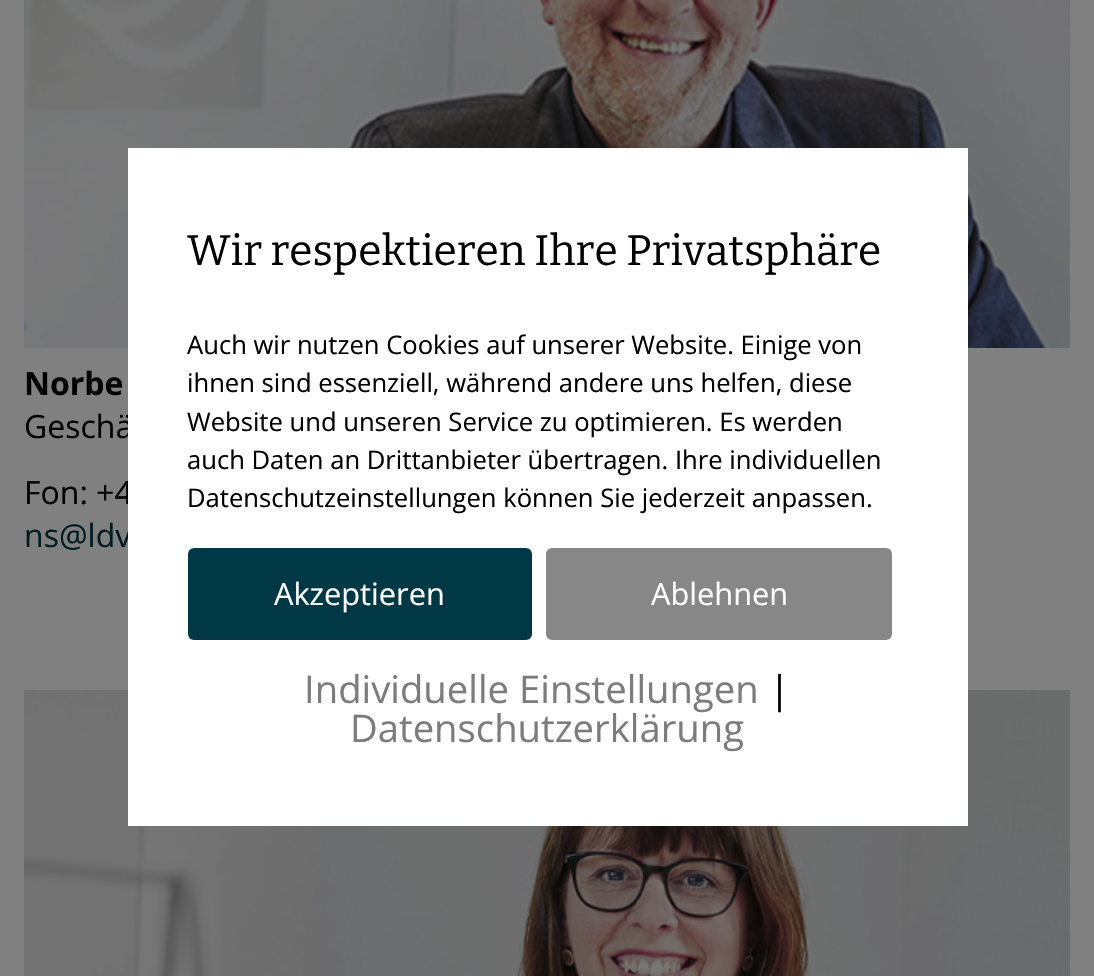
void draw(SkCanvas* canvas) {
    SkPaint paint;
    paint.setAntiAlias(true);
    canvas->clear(0xFF808080);
    canvas->drawImageRect(SkImages::DeferredFromEncodedData(SkData::MakeFromFileName("img1.png")), SkRect::MakeXYWH(24, 0, 1046, 348), SkSamplingOptions());
    SkFont font1(fontMgr->matchFamilyStyle("Open Sans", SkFontStyle::Bold()), 32);
    font1.setSubpixel(true);
    paint.setColor(0xFF000000);
    canvas->drawString("Norbe", 24, 395, font1, paint);
    SkFont font2(fontMgr->matchFamilyStyle("Open Sans", SkFontStyle::Normal()), 32);
    font2.setSubpixel(true);
    canvas->drawString("Geschä", 24, 438, font2, paint);
    canvas->drawString("Fon: +4", 24, 504, font2, paint);
    paint.setColor(0xFF001C23);
    canvas->drawString("ns@ldv", 24, 547, font2, paint);
    canvas->drawImageRect(SkImages::DeferredFromEncodedData(SkData::MakeFromFileName("img2.png")), SkRect::MakeXYWH(24, 690, 1046, 286), SkSamplingOptions());
    paint.setColor(0xFFFFFFFF);
    canvas->drawRect(SkRect::MakeXYWH(128, 148, 840, 678), paint);
    SkFont font3(fontMgr->matchFamilyStyle("Bitter", SkFontStyle::Normal()), 42.5f);
    font3.setSubpixel(true);
    paint.setColor(0xFF000000);
    canvas->drawString("Wir respektieren Ihre Privatsphäre", 187, 265, font3, paint);
    SkFont font4(fontMgr->matchFamilyStyle("Open Sans", SkFontStyle::Normal()), 25.6f);
    font4.setSubpixel(true);
    canvas->drawString("Auch wir nutzen Cookies auf unserer Website. Einige von", 187, 354, font4, paint);
    canvas->drawString("ihnen sind essenziell, während andere uns helfen, diese", 187, 392, font4, paint);
    canvas->drawString("Website und unseren Service zu optimieren. Es werden", 187, 431, font4, paint);
    canvas->drawString("auch Daten an Drittanbieter übertragen. Ihre individuellen", 187, 469, font4, paint);
    canvas->drawString("Datenschutzeinstellungen können Sie jederzeit anpassen.", 187, 507, font4, paint);
    paint.setColor(0xFF003846);
    canvas->drawRoundRect(SkRect::MakeXYWH(188, 548, 344, 92), 6, 6, paint);
    SkFont font5(fontMgr->matchFamilyStyle("Open Sans", SkFontStyle::Normal()), 30.75f);
    font5.setSubpixel(true);
    paint.setColor(0xFFFFFFFF);
    canvas->drawString("Akzeptieren", 274, 605, font5, paint);
    paint.setColor(0xFF878787);
    canvas->drawRoundRect(SkRect::MakeXYWH(546, 548, 346, 92), 6, 6, paint);
    paint.setColor(0xFFFFFFFF);
    canvas->drawString("Ablehnen", 651, 605, font5, paint);
    SkFont font6(fontMgr->matchFamilyStyle("Open Sans", SkFontStyle::Normal()), 38.25f);
    font6.setSubpixel(true);
    paint.setColor(0xFF7C7C7C);
    canvas->drawString("Individuelle Einstellungen", 304, 703, font6, paint);
    paint.setColor(0xFF000000);
    canvas->drawString("|", 769, 703, font6, paint);
    paint.setColor(0xFF7C7C7C);
    canvas->drawString("Datenschutzerklärung", 350, 742, font6, paint);
}
